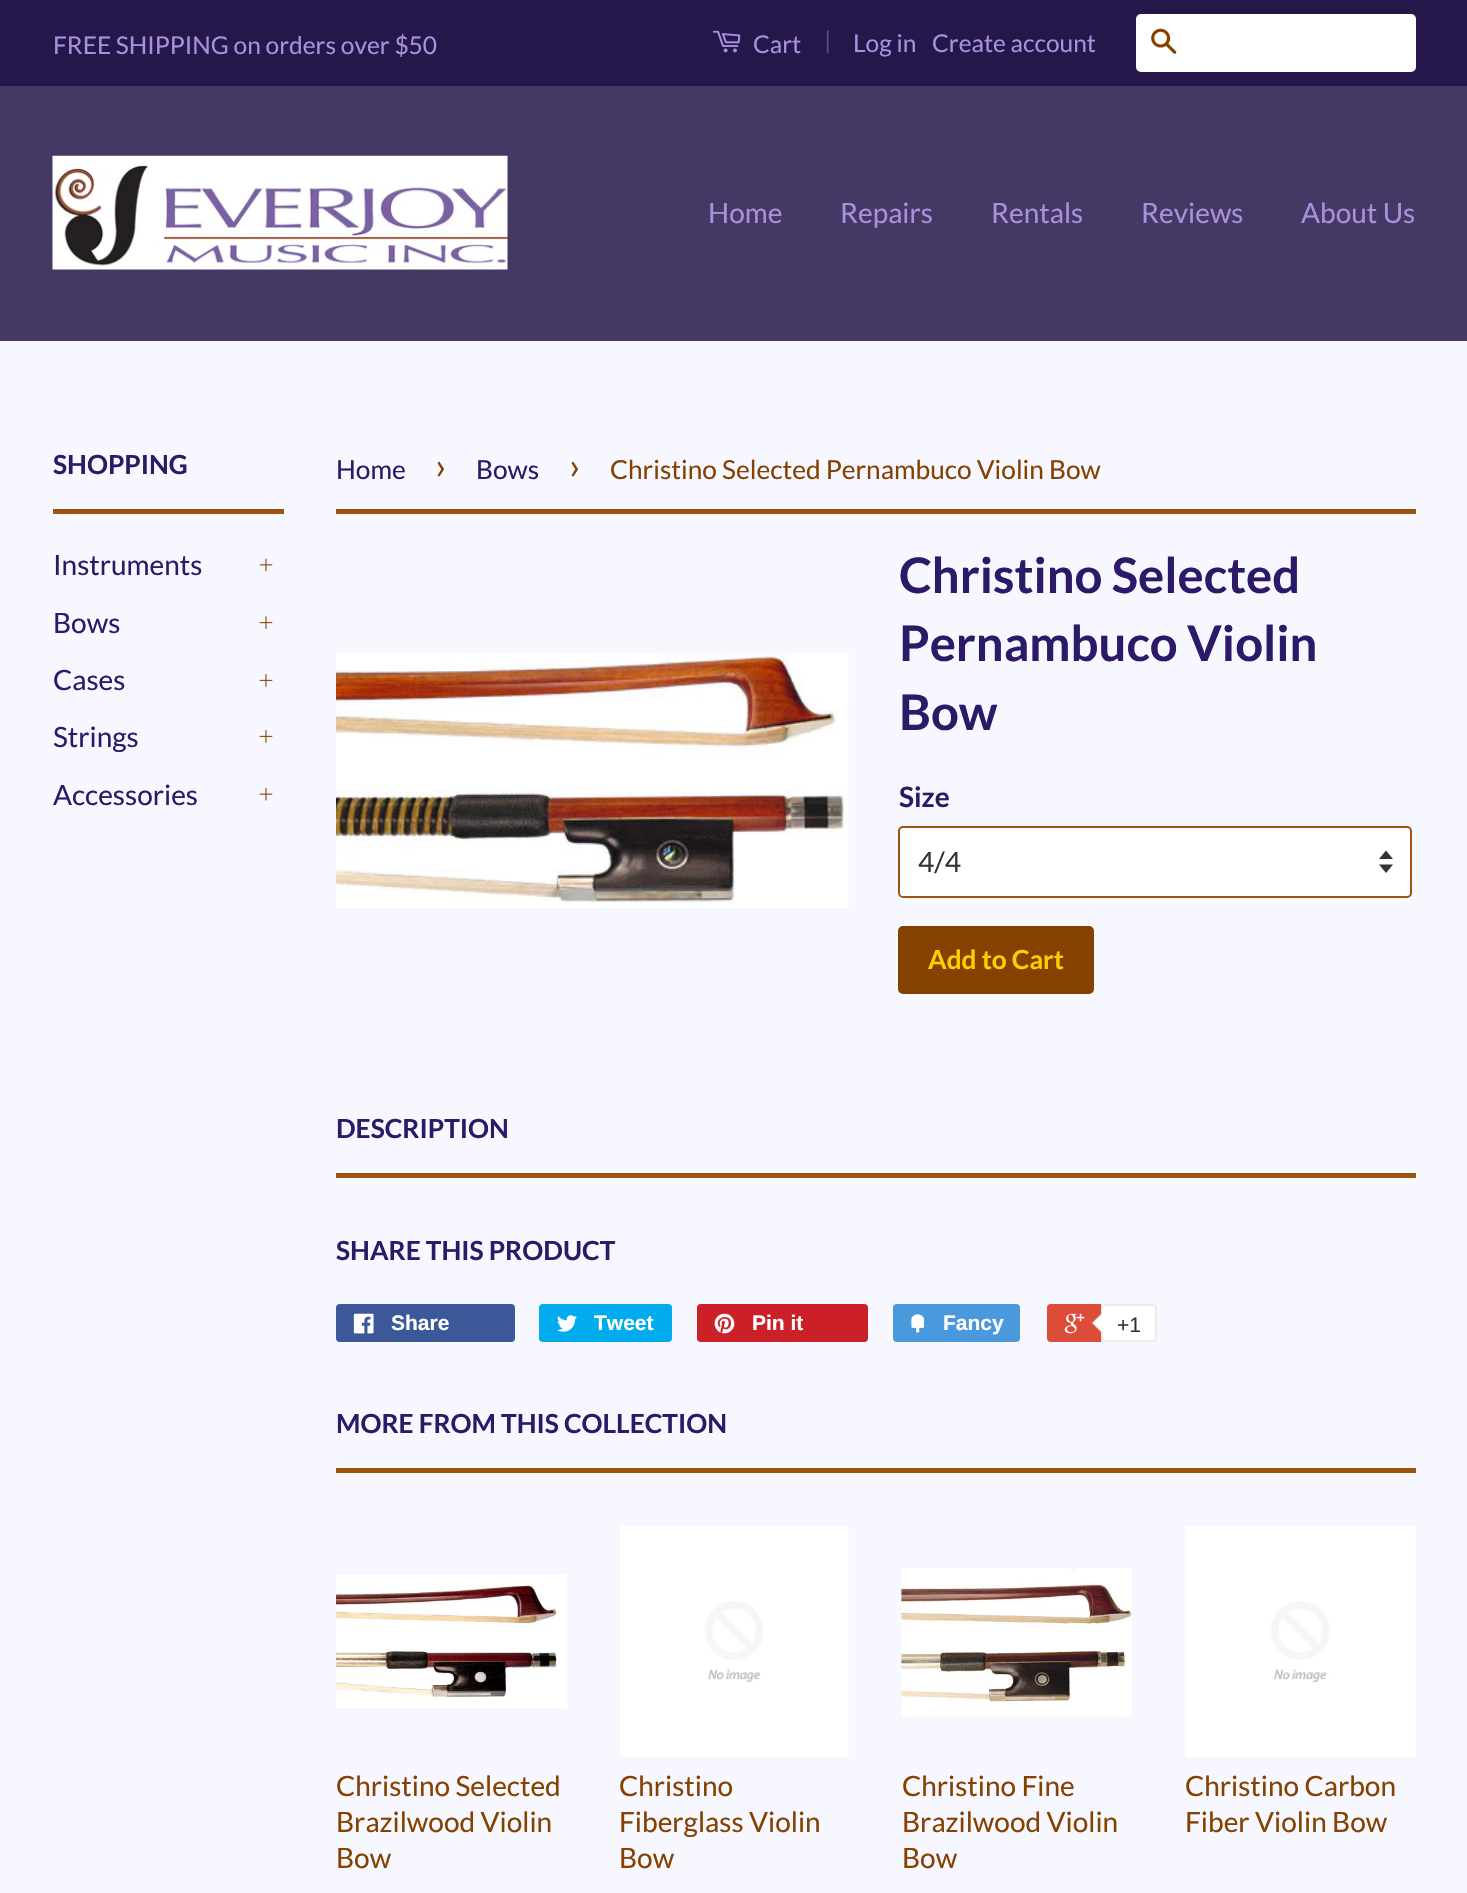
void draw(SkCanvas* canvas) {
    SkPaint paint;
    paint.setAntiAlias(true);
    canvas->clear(0xFFF7F7FF);
    paint.setColor(0xFF26174A);
    canvas->drawRect(SkRect::MakeXYWH(0, 0, 1467, 86), paint);
    SkFont font1(fontMgr->matchFamilyStyle("Lato", SkFontStyle::Normal()), 24.5f);
    font1.setSubpixel(true);
    paint.setColor(0xFFA791DD);
    canvas->drawString("FREE SHIPPING on orders over $50", 53, 54, font1, paint);
    canvas->drawImageRect(SkImages::DeferredFromEncodedData(SkData::MakeFromFileName("img1.png")), SkRect::MakeXYWH(712, 30, 29, 23), SkSamplingOptions());
    canvas->drawString("Cart", 753, 53, font1, paint);
    paint.setColor(0xFF5A4885);
    canvas->drawString("|", 824, 49, font1, paint);
    paint.setColor(0xFFA791DD);
    canvas->drawString("Log in", 853, 52, font1, paint);
    canvas->drawString("Create account", 932, 52, font1, paint);
    paint.setColor(0xFFFFFFFF);
    canvas->drawRoundRect(SkRect::MakeXYWH(1136, 14, 280, 58), 5, 5, paint);
    canvas->drawImageRect(SkImages::DeferredFromEncodedData(SkData::MakeFromFileName("img2.png")), SkRect::MakeXYWH(1151, 28, 26, 26), SkSamplingOptions());
    paint.setColor(0xFF453865);
    canvas->drawRect(SkRect::MakeXYWH(0, 86, 1467, 255), paint);
    canvas->drawImageRect(SkImages::DeferredFromEncodedData(SkData::MakeFromFileName("img3.png")), SkRect::MakeXYWH(52, 155, 456, 115), SkSamplingOptions());
    SkFont font2(fontMgr->matchFamilyStyle("Lato", SkFontStyle::Normal()), 28);
    font2.setSubpixel(true);
    paint.setColor(0xFFA791DD);
    canvas->drawString("Home", 708, 223, font2, paint);
    canvas->drawString("Repairs", 840, 223, font2, paint);
    canvas->drawString("Rentals", 991, 223, font2, paint);
    canvas->drawString("Reviews", 1141, 223, font2, paint);
    canvas->drawString("About Us", 1301, 223, font2, paint);
    paint.setColor(0xFF9D540F);
    canvas->drawRect(SkRect::MakeXYWH(53, 509, 231, 5), paint);
    SkFont font3(fontMgr->matchFamilyStyle("Lato", SkFontStyle::Bold()), 26.25f);
    font3.setSubpixel(true);
    paint.setColor(0xFF2C1A68);
    canvas->drawString("SHOPPING", 53, 474, font3, paint);
    canvas->drawString("Instruments", 53, 575, font2, paint);
    canvas->drawImageRect(SkImages::DeferredFromEncodedData(SkData::MakeFromFileName("img4.png")), SkRect::MakeXYWH(259, 558, 14, 14), SkSamplingOptions());
    canvas->drawString("Bows", 53, 633, font2, paint);
    canvas->drawImageRect(SkImages::DeferredFromEncodedData(SkData::MakeFromFileName("img5.png")), SkRect::MakeXYWH(259, 616, 14, 13), SkSamplingOptions());
    canvas->drawString("Cases", 53, 690, font2, paint);
    canvas->drawImageRect(SkImages::DeferredFromEncodedData(SkData::MakeFromFileName("img6.png")), SkRect::MakeXYWH(259, 674, 14, 13), SkSamplingOptions());
    canvas->drawString("Strings", 53, 747, font2, paint);
    canvas->drawImageRect(SkImages::DeferredFromEncodedData(SkData::MakeFromFileName("img6.png")), SkRect::MakeXYWH(259, 730, 14, 13), SkSamplingOptions());
    canvas->drawString("Accessories", 53, 805, font2, paint);
    canvas->drawImageRect(SkImages::DeferredFromEncodedData(SkData::MakeFromFileName("img7.png")), SkRect::MakeXYWH(259, 787, 14, 14), SkSamplingOptions());
    SkFont font4(fontMgr->matchFamilyStyle("Lato", SkFontStyle::Normal()), 26.25f);
    font4.setSubpixel(true);
    canvas->drawString("Home", 336, 479, font4, paint);
    SkFont font5(fontMgr->matchFamilyStyle("Lato", SkFontStyle::Normal()), 37);
    font5.setSubpixel(true);
    paint.setColor(0xFF854100);
    canvas->drawString("›", 435, 479, font5, paint);
    paint.setColor(0xFF2C1A68);
    canvas->drawString("Bows", 476, 479, font4, paint);
    paint.setColor(0xFF854100);
    canvas->drawString("›", 569, 479, font5, paint);
    canvas->drawString("Christino Selected Pernambuco Violin Bow", 610, 479, font4, paint);
    paint.setColor(0xFF9D540F);
    canvas->drawRect(SkRect::MakeXYWH(336, 509, 1080, 5), paint);
    canvas->drawImageRect(SkImages::DeferredFromEncodedData(SkData::MakeFromFileName("img8.png")), SkRect::MakeXYWH(336, 653, 513, 255), SkSamplingOptions());
    SkFont font6(fontMgr->matchFamilyStyle("Lato", SkFontStyle::Bold()), 49);
    font6.setSubpixel(true);
    paint.setColor(0xFF2C1A68);
    canvas->drawString("Christino Selected", 899, 593, font6, paint);
    canvas->drawString("Pernambuco Violin", 899, 661, font6, paint);
    canvas->drawString("Bow", 899, 730, font6, paint);
    SkFont font7(fontMgr->matchFamilyStyle("Lato", SkFontStyle::Bold()), 28);
    font7.setSubpixel(true);
    canvas->drawString("Size", 899, 807, font7, paint);
    paint.setColor(0xFFFFFFFF);
    canvas->drawRoundRect(SkRect::MakeXYWH(898, 826, 514, 72), 5, 5, paint);
    paint.setColor(0xFF333333);
    canvas->drawPath(SkPathBuilder().moveTo(1379, 864.5f).lineTo(1386, 873).lineTo(1393, 864.5f).close().moveTo(1386, 850.5f).lineTo(1379, 859).lineTo(1393, 859).close().detach(), paint);
    paint.setStyle(SkPaint::kStroke_Style);
    paint.setStrokeWidth(2);
    paint.setColor(0xFF9D540F);
    canvas->drawRoundRect(SkRect::MakeXYWH(899, 827, 512, 70), 4, 4, paint);
    paint.setStyle(SkPaint::kFill_Style);
    paint.setColor(0xFF333333);
    canvas->drawString("4/4", 918, 872, font2, paint);
    paint.setColor(0xFF854100);
    canvas->drawRoundRect(SkRect::MakeXYWH(898, 926, 196, 68), 5, 5, paint);
    paint.setColor(0xFFFFCD00);
    canvas->drawString("Add to Cart", 928, 969, font3, paint);
    paint.setColor(0xFF9D540F);
    canvas->drawRect(SkRect::MakeXYWH(336, 1173, 1080, 5), paint);
    paint.setColor(0xFF2C1A68);
    canvas->drawString("DESCRIPTION", 336, 1138, font3, paint);
    canvas->drawString("SHARE THIS PRODUCT", 336, 1260, font3, paint);
    paint.setColor(0xFF3B5998);
    canvas->drawRoundRect(SkRect::MakeXYWH(336, 1304, 179, 38), 4, 4, paint);
    canvas->drawImageRect(SkImages::DeferredFromEncodedData(SkData::MakeFromFileName("img9.png")), SkRect::MakeXYWH(353, 1313, 21, 21), SkSamplingOptions());
    SkFont font8(fontMgr->matchFamilyStyle("Liberation Sans", SkFontStyle::Bold()), 21);
    font8.setSubpixel(true);
    paint.setColor(0xFFFFFFFF);
    canvas->drawString("Share", 391, 1330, font8, paint);
    paint.setColor(0xFF00ACED);
    canvas->drawRoundRect(SkRect::MakeXYWH(539, 1304, 133, 38), 4, 4, paint);
    canvas->drawImageRect(SkImages::DeferredFromEncodedData(SkData::MakeFromFileName("img10.png")), SkRect::MakeXYWH(557, 1315, 20, 17), SkSamplingOptions());
    paint.setColor(0xFFFFFFFF);
    canvas->drawString("Tweet", 594, 1330, font8, paint);
    paint.setColor(0xFFCB2027);
    canvas->drawRoundRect(SkRect::MakeXYWH(697, 1304, 171, 38), 4, 4, paint);
    canvas->drawImageRect(SkImages::DeferredFromEncodedData(SkData::MakeFromFileName("img11.png")), SkRect::MakeXYWH(714, 1313, 21, 21), SkSamplingOptions());
    paint.setColor(0xFFFFFFFF);
    canvas->drawString("Pin it", 752, 1330, font8, paint);
    paint.setColor(0xFF4999DC);
    canvas->drawRoundRect(SkRect::MakeXYWH(893, 1304, 127, 38), 4, 4, paint);
    canvas->drawImageRect(SkImages::DeferredFromEncodedData(SkData::MakeFromFileName("img12.png")), SkRect::MakeXYWH(911, 1314, 14, 19), SkSamplingOptions());
    paint.setColor(0xFFFFFFFF);
    canvas->drawString("Fancy", 943, 1330, font8, paint);
    paint.setColor(0xFFDD4B39);
    canvas->drawRoundRect(SkRect::MakeXYWH(1047, 1304, 106, 38), 4, 4, paint);
    canvas->drawImageRect(SkImages::DeferredFromEncodedData(SkData::MakeFromFileName("img13.png")), SkRect::MakeXYWH(1064, 1313, 21, 21), SkSamplingOptions());
    paint.setColor(0xFFFFFFFF);
    canvas->drawPath(SkPathBuilder().moveTo(1102, 1305).lineTo(1153, 1305).cubicTo(1154.5f, 1305, 1156, 1306.5f, 1156, 1308).lineTo(1156, 1338).cubicTo(1156, 1339.5f, 1154.5f, 1341, 1153, 1341).lineTo(1102, 1341).close().detach(), paint);
    paint.setStyle(SkPaint::kStroke_Style);
    paint.setColor(0xFFECECEC);
    canvas->drawPath(SkPathBuilder().moveTo(1102, 1305).lineTo(1153, 1305).cubicTo(1154.5f, 1305, 1156, 1306.5f, 1156, 1308).lineTo(1156, 1338).cubicTo(1156, 1339.5f, 1154.5f, 1341, 1153, 1341).lineTo(1102, 1341).close().detach(), paint);
    paint.setStyle(SkPaint::kFill_Style);
    canvas->drawPath(SkPathBuilder().moveTo(1102.5f, 1312.5f).lineTo(1102.5f, 1333.5f).lineTo(1092, 1323).close().detach(), paint);
    paint.setColor(0xFFFFFFFF);
    canvas->drawPath(SkPathBuilder().moveTo(1104, 1312.5f).lineTo(1104, 1333.5f).lineTo(1094, 1323).close().detach(), paint);
    SkFont font9(fontMgr->matchFamilyStyle("Liberation Sans", SkFontStyle::Normal()), 21);
    font9.setSubpixel(true);
    paint.setColor(0xFF333333);
    canvas->drawString("+1", 1117, 1332, font9, paint);
    paint.setColor(0xFF9D540F);
    canvas->drawRect(SkRect::MakeXYWH(336, 1468, 1080, 5), paint);
    paint.setColor(0xFF2C1A68);
    canvas->drawString("MORE FROM THIS COLLECTION", 336, 1433, font3, paint);
    canvas->drawImageRect(SkImages::DeferredFromEncodedData(SkData::MakeFromFileName("img14.png")), SkRect::MakeXYWH(336, 1575, 231, 133), SkSamplingOptions());
    paint.setColor(0xFF854100);
    canvas->drawString("Christino Selected", 336, 1796, font2, paint);
    canvas->drawString("Brazilwood Violin", 336, 1832, font2, paint);
    canvas->drawString("Bow", 336, 1868, font2, paint);
    canvas->drawImageRect(SkImages::DeferredFromEncodedData(SkData::MakeFromFileName("img15.png")), SkRect::MakeXYWH(620, 1526, 229, 231), SkSamplingOptions());
    canvas->drawString("Christino", 619, 1796, font2, paint);
    canvas->drawString("Fiberglass Violin", 619, 1832, font2, paint);
    canvas->drawString("Bow", 619, 1868, font2, paint);
    canvas->drawImageRect(SkImages::DeferredFromEncodedData(SkData::MakeFromFileName("img16.png")), SkRect::MakeXYWH(901, 1568, 231, 149), SkSamplingOptions());
    canvas->drawString("Christino Fine", 902, 1796, font2, paint);
    canvas->drawString("Brazilwood Violin", 902, 1832, font2, paint);
    canvas->drawString("Bow", 902, 1868, font2, paint);
    canvas->drawImageRect(SkImages::DeferredFromEncodedData(SkData::MakeFromFileName("img17.png")), SkRect::MakeXYWH(1185, 1526, 231, 231), SkSamplingOptions());
    canvas->drawString("Christino Carbon", 1185, 1796, font2, paint);
    canvas->drawString("Fiber Violin Bow", 1185, 1832, font2, paint);
}
